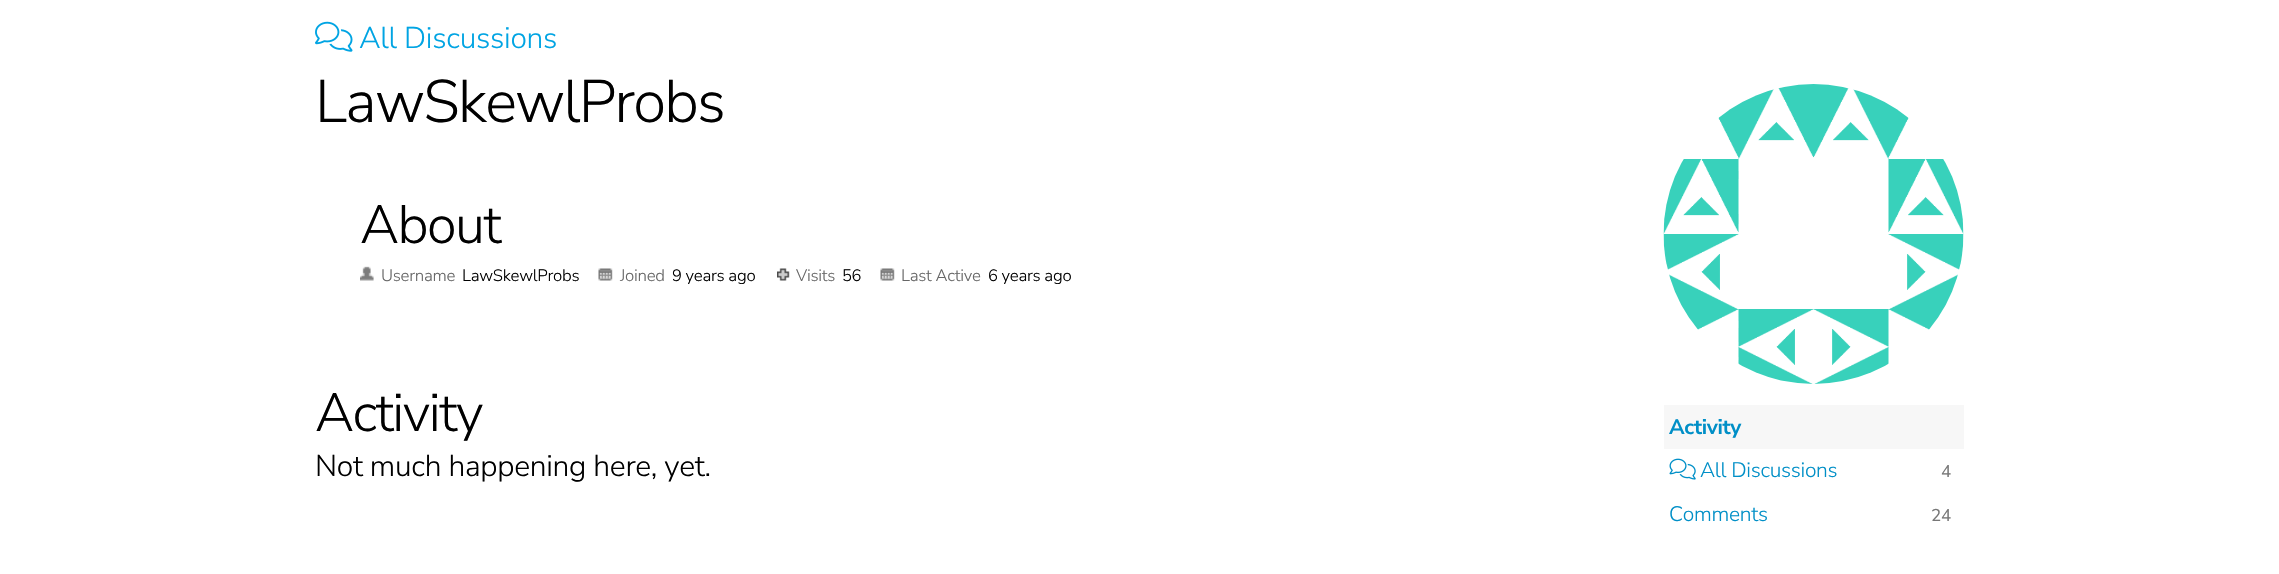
void draw(SkCanvas* canvas) {
    SkPaint paint;
    paint.setAntiAlias(true);
    auto spacedText = [&](const char* s, float x, float y, const SkFont& font, const SkPaint& ink, float letter, float word) {
        std::vector<SkGlyphID> glyphs(font.countText(s, strlen(s), SkTextEncoding::kUTF8));
        std::vector<float> xs(glyphs.size());
        font.textToGlyphs(s, strlen(s), SkTextEncoding::kUTF8, glyphs);
        font.getXPos(glyphs, xs, x);
        float extra = 0;
        for (size_t i = 0; i < glyphs.size(); i++) {
            xs[i] += extra;
            extra += letter + word * (glyphs[i] == font.unicharToGlyph(' '));
        }
        canvas->drawTextBlob(SkTextBlob::MakeFromPosHGlyphs(glyphs, xs, y, font), 0, 0, ink);
    };
    canvas->clear(0xFFFFFFFF);
    canvas->drawImageRect(SkImages::DeferredFromEncodedData(SkData::MakeFromFileName("img1.png")), SkRect::MakeXYWH(315, 21, 38, 31), SkSamplingOptions());
    SkFont font1(fontMgr->matchFamilyStyle("Nunito Sans", SkFontStyle(300, SkFontStyle::kNormal_Width, SkFontStyle::kUpright_Slant)), 30);
    font1.setSubpixel(true);
    paint.setColor(0xFF00A4E3);
    spacedText("All Discussions", 359, 48, font1, paint, -0.3f, 0);
    SkFont font2(fontMgr->matchFamilyStyle("Nunito Sans", SkFontStyle(300, SkFontStyle::kNormal_Width, SkFontStyle::kUpright_Slant)), 60);
    font2.setSubpixel(true);
    paint.setColor(0xFF000000);
    spacedText("LawSkewlProbs", 315, 122, font2, paint, -1.75f, 0);
    SkFont font3(fontMgr->matchFamilyStyle("Nunito Sans", SkFontStyle(300, SkFontStyle::kNormal_Width, SkFontStyle::kUpright_Slant)), 54);
    font3.setSubpixel(true);
    spacedText("About", 360, 243, font3, paint, -1.5f, 0);
    canvas->drawImageRect(SkImages::DeferredFromEncodedData(SkData::MakeFromFileName("img2.png")), SkRect::MakeXYWH(360, 266, 14, 15), SkSamplingOptions());
    SkFont font4(fontMgr->matchFamilyStyle("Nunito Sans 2", SkFontStyle(300, SkFontStyle::kNormal_Width, SkFontStyle::kUpright_Slant)), 16.5f);
    font4.setSubpixel(true);
    paint.setColor(0xFF666666);
    spacedText("Username", 381, 281, font4, paint, -0.3f, 0);
    paint.setColor(0xFF000000);
    spacedText("LawSkewlProbs", 462, 281, font4, paint, -0.3f, 0);
    canvas->drawImageRect(SkImages::DeferredFromEncodedData(SkData::MakeFromFileName("img3.png")), SkRect::MakeXYWH(598, 268, 15, 13), SkSamplingOptions());
    paint.setColor(0xFF666666);
    spacedText("Joined", 620, 281, font4, paint, -0.3f, 0);
    paint.setColor(0xFF000000);
    spacedText("9 years ago", 672, 281, font4, paint, -0.3f, 0);
    canvas->drawImageRect(SkImages::DeferredFromEncodedData(SkData::MakeFromFileName("img4.png")), SkRect::MakeXYWH(777, 268, 13, 13), SkSamplingOptions());
    paint.setColor(0xFF666666);
    spacedText("Visits", 796, 281, font4, paint, -0.3f, 0);
    paint.setColor(0xFF000000);
    spacedText("56", 842, 281, font4, paint, -0.3f, 0);
    canvas->drawImageRect(SkImages::DeferredFromEncodedData(SkData::MakeFromFileName("img5.png")), SkRect::MakeXYWH(880, 268, 15, 13), SkSamplingOptions());
    paint.setColor(0xFF666666);
    spacedText("Last Active", 901, 281, font4, paint, -0.3f, 0);
    paint.setColor(0xFF000000);
    spacedText("6 years ago", 988, 281, font4, paint, -0.3f, 0);
    spacedText("Activity", 315, 431, font3, paint, -1.5f, 0);
    spacedText("Not much happening here, yet.", 315, 476, font1, paint, -0.3f, 0);
    canvas->drawImageRect(SkImages::DeferredFromEncodedData(SkData::MakeFromFileName("img6.png")), SkRect::MakeXYWH(1663, 84, 301, 300), SkSamplingOptions());
    paint.setColor(0xFFF7F7F7);
    canvas->drawRect(SkRect::MakeXYWH(1664, 405, 300, 44), paint);
    SkFont font5(fontMgr->matchFamilyStyle("Nunito Sans", SkFontStyle::Bold()), 21);
    font5.setSubpixel(true);
    paint.setColor(0xFF008FC7);
    spacedText("Activity", 1669, 434, font5, paint, -0.3f, 0);
    canvas->drawImageRect(SkImages::DeferredFromEncodedData(SkData::MakeFromFileName("img7.png")), SkRect::MakeXYWH(1669, 458, 27, 22), SkSamplingOptions());
    SkFont font6(fontMgr->matchFamilyStyle("Nunito Sans", SkFontStyle(300, SkFontStyle::kNormal_Width, SkFontStyle::kUpright_Slant)), 21);
    font6.setSubpixel(true);
    spacedText("All Discussions", 1700, 477, font6, paint, -0.3f, 0);
    SkFont font7(fontMgr->matchFamilyStyle("Nunito Sans", SkFontStyle::Normal()), 17);
    font7.setSubpixel(true);
    paint.setColor(0xFF777777);
    spacedText("4", 1941, 477, font7, paint, -0.3f, 0);
    paint.setColor(0xFF008FC7);
    spacedText("Comments", 1669, 521, font6, paint, -0.3f, 0);
    paint.setColor(0xFF777777);
    spacedText("24", 1931, 521, font7, paint, -0.3f, 0);
}
